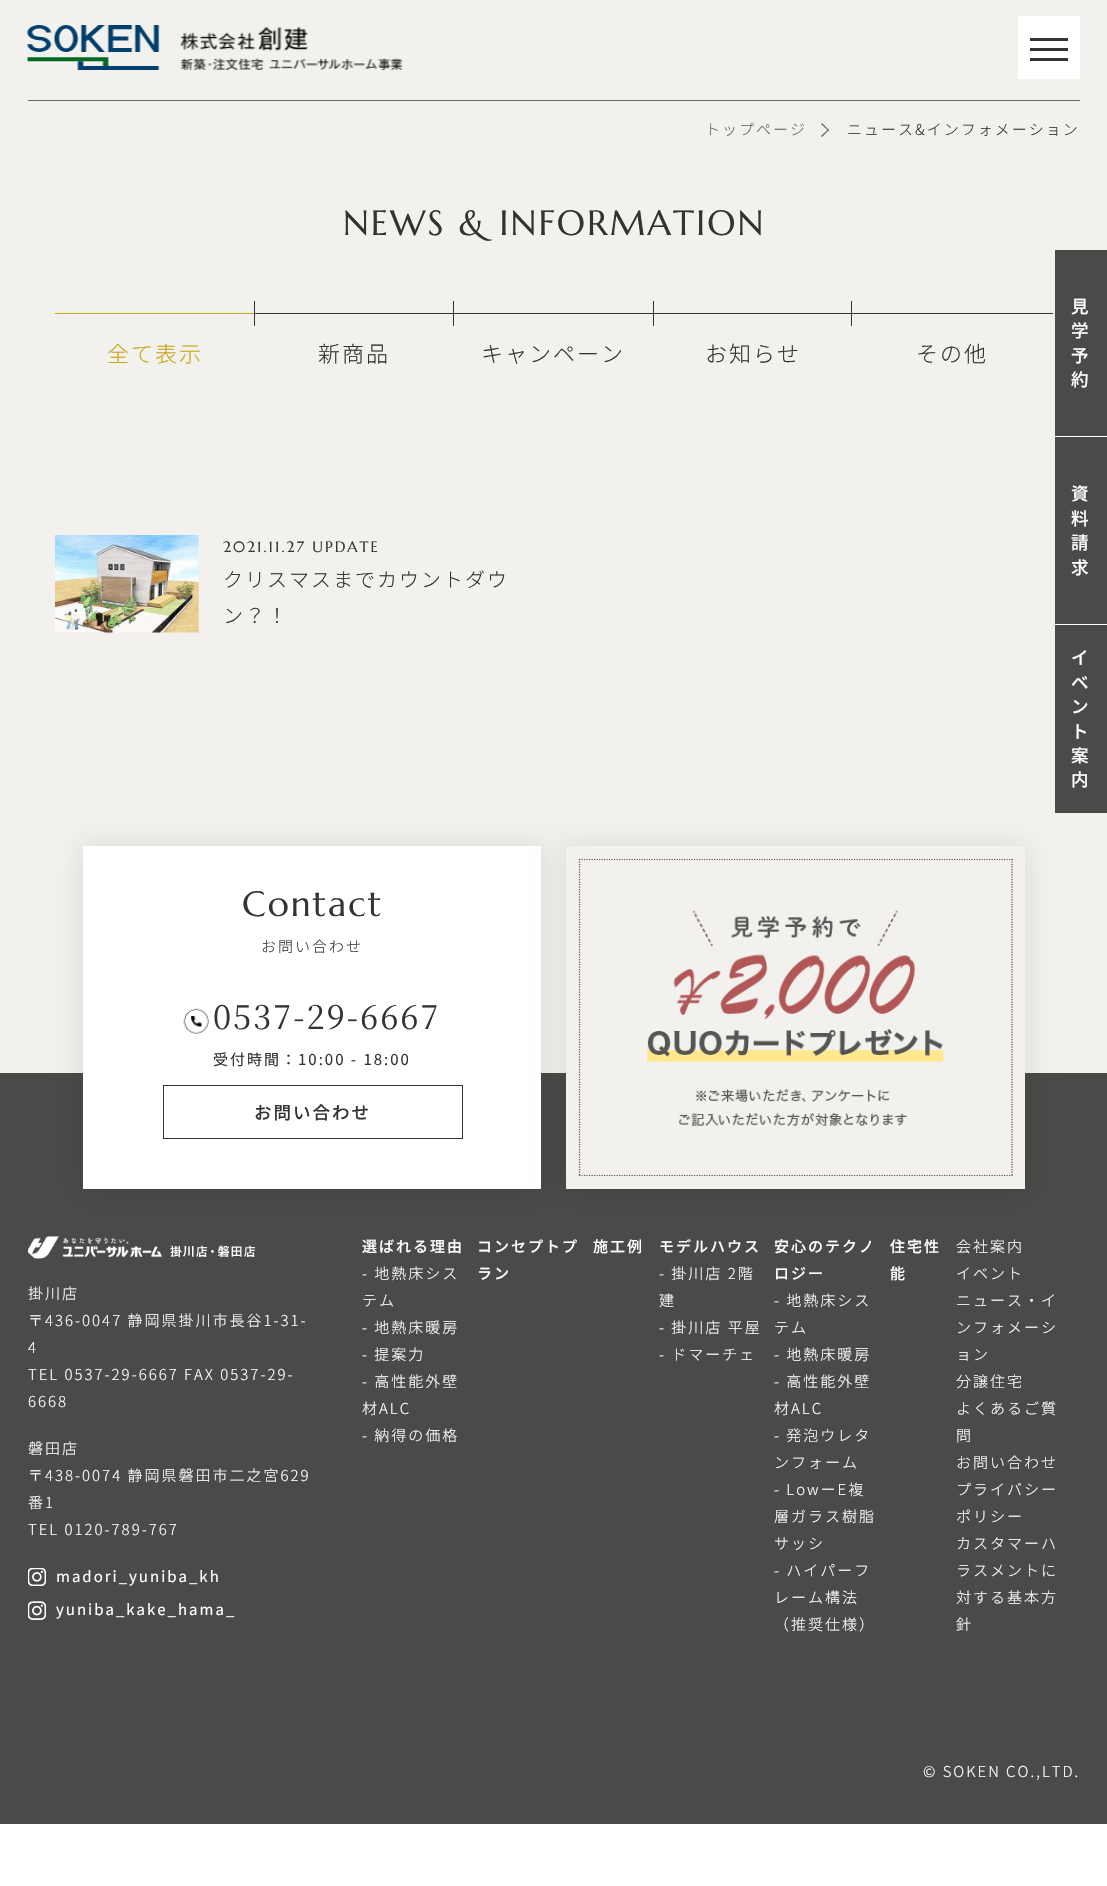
void draw(SkCanvas* canvas) {
    SkPaint paint;
    paint.setAntiAlias(true);
    auto spacedText = [&](const char* s, float x, float y, const SkFont& font, const SkPaint& ink, float letter, float word) {
        std::vector<SkGlyphID> glyphs(font.countText(s, strlen(s), SkTextEncoding::kUTF8));
        std::vector<float> xs(glyphs.size());
        font.textToGlyphs(s, strlen(s), SkTextEncoding::kUTF8, glyphs);
        font.getXPos(glyphs, xs, x);
        float extra = 0;
        for (size_t i = 0; i < glyphs.size(); i++) {
            xs[i] += extra;
            extra += letter + word * (glyphs[i] == font.unicharToGlyph(' '));
        }
        canvas->drawTextBlob(SkTextBlob::MakeFromPosHGlyphs(glyphs, xs, y, font), 0, 0, ink);
    };
    canvas->clear(0xFFFFFFFF);
    paint.setColor(0xFFF2F1ED);
    canvas->drawRect(SkRect::MakeXYWH(0, 0, 1107, 1073), paint);
    canvas->drawImageRect(SkImages::DeferredFromEncodedData(SkData::MakeFromFileName("img1.png")), SkRect::MakeXYWH(27, 25, 376, 45), SkSamplingOptions());
    paint.setColor(0xFFFFFFFF);
    canvas->drawRect(SkRect::MakeXYWH(1018, 16, 62, 63), paint);
    paint.setColor(0xFF333333);
    canvas->drawRect(SkRect::MakeXYWH(1030, 38, 38, 3), paint);
    canvas->drawRect(SkRect::MakeXYWH(1030, 48, 38, 3), paint);
    canvas->drawRect(SkRect::MakeXYWH(1030, 58, 38, 3), paint);
    paint.setColor(0xFF6B6B6B);
    canvas->drawRect(SkRect::MakeXYWH(28, 100, 1052, 1), paint);
    SkFont font1(fontMgr->matchFamilyStyle("Noto Sans JP", SkFontStyle(300, SkFontStyle::kNormal_Width, SkFontStyle::kUpright_Slant)), 15);
    font1.setSubpixel(true);
    paint.setColor(0xFF666666);
    spacedText("トップページ", 705, 135, font1, paint, 2, 0);
    canvas->drawPath(SkPathBuilder().moveTo(822, 123).lineTo(829, 130).lineTo(828.5f, 131).lineTo(821, 124).close().detach(), paint);
    canvas->drawPath(SkPathBuilder().moveTo(828.5f, 129).lineTo(829, 130).lineTo(822, 137).lineTo(821, 136).close().detach(), paint);
    paint.setColor(0xFF333333);
    spacedText("ニュース&インフォメーション", 847, 135, font1, paint, 2, 0);
    SkFont font2(fontMgr->matchFamilyStyle("Marcellus", SkFontStyle::Normal()), 35);
    font2.setSubpixel(true);
    spacedText("NEWS & INFORMATION", 343, 235, font2, paint, 2, 0);
    paint.setColor(0xFFCAA719);
    canvas->drawRect(SkRect::MakeXYWH(55, 313, 200, 1), paint);
    paint.setColor(0xFF333333);
    canvas->drawRect(SkRect::MakeXYWH(254, 301, 1, 25), paint);
    SkFont font3(fontMgr->matchFamilyStyle("Noto Sans JP", SkFontStyle(300, SkFontStyle::kNormal_Width, SkFontStyle::kUpright_Slant)), 22);
    font3.setSubpixel(true);
    paint.setColor(0xFFCAA719);
    spacedText("全て表示", 107, 362, font3, paint, 2, 0);
    paint.setColor(0xFF333333);
    canvas->drawRect(SkRect::MakeXYWH(255, 313, 798, 1), paint);
    canvas->drawRect(SkRect::MakeXYWH(453, 301, 1, 25), paint);
    spacedText("新商品", 318, 362, font3, paint, 2, 0);
    canvas->drawRect(SkRect::MakeXYWH(653, 301, 1, 25), paint);
    spacedText("キャンペーン", 481, 362, font3, paint, 2, 0);
    canvas->drawRect(SkRect::MakeXYWH(851, 301, 1, 25), paint);
    spacedText("お知らせ", 705, 362, font3, paint, 2, 0);
    spacedText("その他", 916, 362, font3, paint, 2, 0);
    canvas->drawImageRect(SkImages::DeferredFromEncodedData(SkData::MakeFromFileName("img2.png")), SkRect::MakeXYWH(55, 535, 144, 98), SkSamplingOptions());
    SkFont font4(fontMgr->matchFamilyStyle("Marcellus", SkFontStyle::Normal()), 15);
    font4.setSubpixel(true);
    spacedText("2021.11.27 UPDATE", 223, 552, font4, paint, 2, 0);
    SkFont font5(fontMgr->matchFamilyStyle("Noto Sans JP", SkFontStyle(300, SkFontStyle::kNormal_Width, SkFontStyle::kUpright_Slant)), 20);
    font5.setSubpixel(true);
    spacedText("クリスマスまでカウントダウ", 223, 587, font5, paint, 2, 0);
    spacedText("ン？！", 223, 623, font5, paint, 2, 0);
    paint.setColor(0xFF4A4A48);
    canvas->drawRect(SkRect::MakeXYWH(1055, 250, 52, 374), paint);
    paint.setColor(0xFFFFFFFF);
    canvas->drawRect(SkRect::MakeXYWH(1055, 436, 52, 1), paint);
    SkFont font6(fontMgr->matchFamilyStyle("Noto Sans JP", SkFontStyle(500, SkFontStyle::kNormal_Width, SkFontStyle::kUpright_Slant)), 17.5f);
    font6.setSubpixel(true);
    spacedText("見", 1071, 313, font6, paint, 2, 0);
    spacedText("学", 1071, 337, font6, paint, 2, 0);
    spacedText("予", 1071, 362, font6, paint, 2, 0);
    spacedText("約", 1071, 386, font6, paint, 2, 0);
    canvas->drawRect(SkRect::MakeXYWH(1055, 624, 52, 1), paint);
    spacedText("資", 1071, 500, font6, paint, 2, 0);
    spacedText("料", 1071, 525, font6, paint, 2, 0);
    spacedText("請", 1071, 549, font6, paint, 2, 0);
    spacedText("求", 1071, 574, font6, paint, 2, 0);
    paint.setColor(0xFF4A4A48);
    canvas->drawRect(SkRect::MakeXYWH(0, 1073, 1107, 751), paint);
    paint.setColor(0x1A000000);
    paint.setMaskFilter(SkMaskFilter::MakeBlur(kNormal_SkBlurStyle, 12.5f));
    canvas->drawRect(SkRect::MakeXYWH(83, 846, 458, 343), paint);
    paint.setMaskFilter(nullptr);
    paint.setColor(0xFFFFFFFF);
    canvas->drawRect(SkRect::MakeXYWH(83, 846, 458, 343), paint);
    paint.setColor(0x1A000000);
    paint.setMaskFilter(SkMaskFilter::MakeBlur(kNormal_SkBlurStyle, 12.5f));
    canvas->drawRect(SkRect::MakeXYWH(566, 846, 459, 343), paint);
    paint.setMaskFilter(nullptr);
    paint.setColor(0xFF4A4A48);
    canvas->drawRect(SkRect::MakeXYWH(1055, 625, 52, 188), paint);
    paint.setColor(0xFFFFFFFF);
    spacedText("イ", 1071, 664, font6, paint, 2, 0);
    spacedText("ベ", 1071, 689, font6, paint, 2, 0);
    spacedText("ン", 1071, 713, font6, paint, 2, 0);
    spacedText("ト", 1071, 738, font6, paint, 2, 0);
    spacedText("案", 1071, 762, font6, paint, 2, 0);
    spacedText("内", 1071, 786, font6, paint, 2, 0);
    paint.setColor(0xFF333333);
    spacedText("Contact", 242, 916, font2, paint, 2, 0);
    spacedText("お問い合わせ", 261, 952, font1, paint, 2, 0);
    canvas->drawImageRect(SkImages::DeferredFromEncodedData(SkData::MakeFromFileName("img3.png")), SkRect::MakeXYWH(183, 1008, 26, 26), SkSamplingOptions());
    SkFont font7(fontMgr->matchFamilyStyle("Noto Serif JP", SkFontStyle(200, SkFontStyle::kNormal_Width, SkFontStyle::kUpright_Slant)), 32.5f);
    font7.setSubpixel(true);
    spacedText("0537-29-6667", 213, 1029, font7, paint, 2, 0);
    SkFont font8(fontMgr->matchFamilyStyle("Noto Sans JP", SkFontStyle::Normal()), 15);
    font8.setSubpixel(true);
    spacedText("受付時間：10:00 - 18:00", 213, 1065, font8, paint, 2, 0);
    paint.setStyle(SkPaint::kStroke_Style);
    paint.setStrokeWidth(1);
    canvas->drawRect(SkRect::MakeXYWH(163.5f, 1085.5f, 299, 53), paint);
    paint.setStyle(SkPaint::kFill_Style);
    spacedText("お問い合わせ", 254, 1119, font6, paint, 2, 0);
    paint.setColor(0xFFF2F1ED);
    canvas->drawRect(SkRect::MakeXYWH(566, 846, 459, 343), paint);
    paint.setStyle(SkPaint::kStroke_Style);
    paint.setStrokeWidth(1.2f);
    paint.setColor(0xFF685151);
    paint.setPathEffect(SkDashPathEffect::Make({{1.25f, 1.25f}}, 0));
    canvas->drawPath(SkPathBuilder().moveTo(579, 859.5f).lineTo(1012.5f, 859.5f).detach(), paint);
    paint.setPathEffect(nullptr);
    paint.setPathEffect(SkDashPathEffect::Make({{1.25f, 1.25f}}, 0));
    canvas->drawPath(SkPathBuilder().moveTo(1012, 859).lineTo(1012, 1176).detach(), paint);
    paint.setPathEffect(nullptr);
    paint.setPathEffect(SkDashPathEffect::Make({{1.25f, 1.25f}}, 0));
    canvas->drawPath(SkPathBuilder().moveTo(579, 1175.5f).lineTo(1012.5f, 1175.5f).detach(), paint);
    paint.setPathEffect(nullptr);
    paint.setPathEffect(SkDashPathEffect::Make({{1.25f, 1.25f}}, 0));
    canvas->drawPath(SkPathBuilder().moveTo(579.5f, 859).lineTo(579.5f, 1176).detach(), paint);
    paint.setPathEffect(nullptr);
    canvas->drawImageRect(SkImages::DeferredFromEncodedData(SkData::MakeFromFileName("img4.png")), SkRect::MakeXYWH(646, 910, 298, 217), SkSamplingOptions());
    canvas->drawImageRect(SkImages::DeferredFromEncodedData(SkData::MakeFromFileName("img5.png")), SkRect::MakeXYWH(28, 1236, 227, 23), SkSamplingOptions());
    paint.setStyle(SkPaint::kFill_Style);
    paint.setColor(0xFFFFFFFF);
    spacedText("掛川店", 28, 1299, font1, paint, 2, 0);
    spacedText("〒436-0047 静岡県掛川市長谷1-31-", 28, 1326, font1, paint, 2, 0);
    spacedText("4", 28, 1353, font1, paint, 2, 0);
    spacedText("TEL 0537-29-6667 FAX 0537-29-", 28, 1380, font1, paint, 2, 0);
    spacedText("6668", 28, 1407, font1, paint, 2, 0);
    spacedText("磐田店", 28, 1454, font1, paint, 2, 0);
    spacedText("〒438-0074 静岡県磐田市二之宮629", 28, 1481, font1, paint, 2, 0);
    spacedText("番1", 28, 1508, font1, paint, 2, 0);
    spacedText("TEL 0120-789-767", 28, 1535, font1, paint, 2, 0);
    canvas->drawImageRect(SkImages::DeferredFromEncodedData(SkData::MakeFromFileName("img6.png")), SkRect::MakeXYWH(28, 1568, 18, 18), SkSamplingOptions());
    spacedText("madori_yuniba_kh", 56, 1582, font8, paint, 2, 0);
    canvas->drawImageRect(SkImages::DeferredFromEncodedData(SkData::MakeFromFileName("img7.png")), SkRect::MakeXYWH(28, 1601, 18, 19), SkSamplingOptions());
    spacedText("yuniba_kake_hama_", 56, 1615, font8, paint, 2, 0);
    SkFont font9(fontMgr->matchFamilyStyle("Noto Sans JP", SkFontStyle(500, SkFontStyle::kNormal_Width, SkFontStyle::kUpright_Slant)), 15);
    font9.setSubpixel(true);
    spacedText("選ばれる理由", 362, 1252, font9, paint, 2, 0);
    spacedText("- 地熱床シス", 362, 1279, font1, paint, 2, 0);
    spacedText("テム", 362, 1306, font1, paint, 2, 0);
    spacedText("- 地熱床暖房", 362, 1333, font1, paint, 2, 0);
    spacedText("- 提案力", 362, 1360, font1, paint, 2, 0);
    spacedText("- 高性能外壁", 362, 1387, font1, paint, 2, 0);
    spacedText("材ALC", 362, 1414, font1, paint, 2, 0);
    spacedText("- 納得の価格", 362, 1441, font1, paint, 2, 0);
    spacedText("コンセプトプ", 477, 1252, font9, paint, 2, 0);
    spacedText("ラン", 477, 1279, font9, paint, 2, 0);
    spacedText("施工例", 593, 1252, font9, paint, 2, 0);
    spacedText("モデルハウス", 659, 1252, font9, paint, 2, 0);
    spacedText("- 掛川店 2階", 659, 1279, font1, paint, 2, 0);
    spacedText("建", 659, 1306, font1, paint, 2, 0);
    spacedText("- 掛川店 平屋", 659, 1333, font1, paint, 2, 0);
    spacedText("- ドマーチェ", 659, 1360, font1, paint, 2, 0);
    spacedText("安心のテクノ", 774, 1252, font9, paint, 2, 0);
    spacedText("ロジー", 774, 1279, font9, paint, 2, 0);
    spacedText("- 地熱床シス", 774, 1306, font1, paint, 2, 0);
    spacedText("テム", 774, 1333, font1, paint, 2, 0);
    spacedText("- 地熱床暖房", 774, 1360, font1, paint, 2, 0);
    spacedText("- 高性能外壁", 774, 1387, font1, paint, 2, 0);
    spacedText("材ALC", 774, 1414, font1, paint, 2, 0);
    spacedText("- 発泡ウレタ", 774, 1441, font1, paint, 2, 0);
    spacedText("ンフォーム", 774, 1468, font1, paint, 2, 0);
    spacedText("- LowーE複", 774, 1495, font1, paint, 2, 0);
    spacedText("層ガラス樹脂", 774, 1522, font1, paint, 2, 0);
    spacedText("サッシ", 774, 1549, font1, paint, 2, 0);
    spacedText("- ハイパーフ", 774, 1576, font1, paint, 2, 0);
    spacedText("レーム構法", 774, 1603, font1, paint, 2, 0);
    spacedText("（推奨仕様）", 774, 1630, font1, paint, 2, 0);
    spacedText("住宅性", 890, 1252, font9, paint, 2, 0);
    spacedText("能", 890, 1279, font9, paint, 2, 0);
    spacedText("会社案内", 956, 1252, font1, paint, 2, 0);
    spacedText("イベント", 956, 1279, font1, paint, 2, 0);
    spacedText("ニュース・イ", 956, 1306, font1, paint, 2, 0);
    spacedText("ンフォメーシ", 956, 1333, font1, paint, 2, 0);
    spacedText("ョン", 956, 1360, font1, paint, 2, 0);
    spacedText("分譲住宅", 956, 1387, font1, paint, 2, 0);
    spacedText("よくあるご質", 956, 1414, font1, paint, 2, 0);
    spacedText("問", 956, 1441, font1, paint, 2, 0);
    spacedText("お問い合わせ", 956, 1468, font1, paint, 2, 0);
    spacedText("プライバシー", 956, 1495, font1, paint, 2, 0);
    spacedText("ポリシー", 956, 1522, font1, paint, 2, 0);
    spacedText("カスタマーハ", 956, 1549, font1, paint, 2, 0);
    spacedText("ラスメントに", 956, 1576, font1, paint, 2, 0);
    spacedText("対する基本方", 956, 1603, font1, paint, 2, 0);
    spacedText("針", 956, 1630, font1, paint, 2, 0);
    spacedText("© SOKEN CO.,LTD.", 923, 1777, font1, paint, 2, 0);
}
